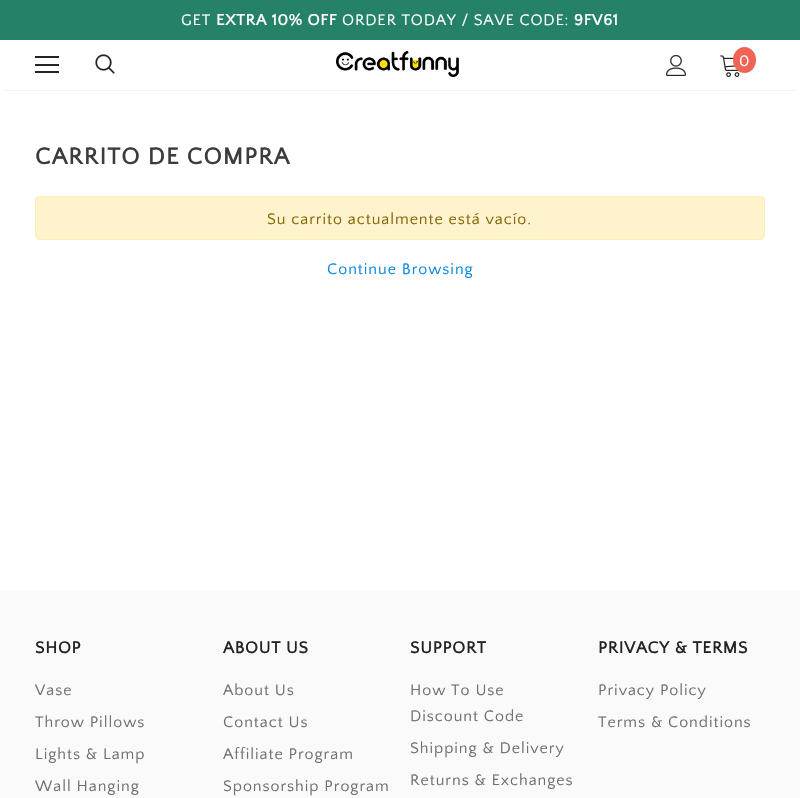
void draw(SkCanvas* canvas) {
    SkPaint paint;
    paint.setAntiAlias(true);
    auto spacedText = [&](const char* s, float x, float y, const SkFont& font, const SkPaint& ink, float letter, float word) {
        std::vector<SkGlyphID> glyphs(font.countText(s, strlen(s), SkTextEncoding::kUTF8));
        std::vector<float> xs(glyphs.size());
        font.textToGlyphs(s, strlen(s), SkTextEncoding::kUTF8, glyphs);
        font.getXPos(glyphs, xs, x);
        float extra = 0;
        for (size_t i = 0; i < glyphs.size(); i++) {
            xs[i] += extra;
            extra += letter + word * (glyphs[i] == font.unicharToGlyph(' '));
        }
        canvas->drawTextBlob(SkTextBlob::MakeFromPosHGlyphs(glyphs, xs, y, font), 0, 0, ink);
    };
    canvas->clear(0xFFFFFFFF);
    paint.setColor(0xFF258268);
    canvas->drawRect(SkRect::MakeXYWH(0, 0, 800, 40), paint);
    SkFont font1(fontMgr->matchFamilyStyle("Quattrocento Sans", SkFontStyle::Normal()), 16);
    font1.setSubpixel(true);
    paint.setColor(0xFFFFFFFF);
    spacedText("GET", 181, 25, font1, paint, 0.8f, 0);
    SkFont font2(fontMgr->matchFamilyStyle("Quattrocento Sans", SkFontStyle::Bold()), 16);
    font2.setSubpixel(true);
    spacedText("EXTRA 10% OFF", 216, 25, font2, paint, 0.8f, 0);
    spacedText("ORDER TODAY / SAVE CODE:", 342, 25, font1, paint, 0.8f, 0);
    spacedText("9FV61", 574, 25, font2, paint, 0.8f, 0);
    canvas->save();
    canvas->clipRect(SkRect::MakeXYWH(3, 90, 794, 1));
    paint.setColor(0x1F000000);
    paint.setMaskFilter(SkMaskFilter::MakeBlur(kNormal_SkBlurStyle, 1.5f));
    canvas->drawRect(SkRect::MakeXYWH(3, 46, 794, 44), paint);
    paint.setMaskFilter(nullptr);
    canvas->restore();
    paint.setColor(0xFF232323);
    canvas->drawRect(SkRect::MakeXYWH(35, 56, 24, 2), paint);
    canvas->drawRect(SkRect::MakeXYWH(35, 64, 24, 2), paint);
    canvas->drawRect(SkRect::MakeXYWH(35, 71, 24, 2), paint);
    canvas->drawImageRect(SkImages::DeferredFromEncodedData(SkData::MakeFromFileName("img1.png")), SkRect::MakeXYWH(95, 54, 20, 20), SkSamplingOptions());
    canvas->drawImageRect(SkImages::DeferredFromEncodedData(SkData::MakeFromFileName("img2.png")), SkRect::MakeXYWH(336, 51, 123, 26), SkSamplingOptions());
    canvas->drawImageRect(SkImages::DeferredFromEncodedData(SkData::MakeFromFileName("img3.png")), SkRect::MakeXYWH(666, 55, 20, 21), SkSamplingOptions());
    canvas->drawImageRect(SkImages::DeferredFromEncodedData(SkData::MakeFromFileName("img4.png")), SkRect::MakeXYWH(720, 55, 20, 22), SkSamplingOptions());
    paint.setColor(0xFFEF6454);
    canvas->drawOval(SkRect::MakeXYWH(733, 47, 23, 26), paint);
    paint.setColor(0xFFFFFFFF);
    spacedText("0", 739, 66, font1, paint, 0.95f, 0);
    SkFont font3(fontMgr->matchFamilyStyle("Quattrocento Sans", SkFontStyle::Bold()), 24);
    font3.setSubpixel(true);
    paint.setColor(0xFF3C3C3C);
    spacedText("CARRITO DE COMPRA", 35, 164, font3, paint, 1.25f, 0);
    paint.setColor(0xFFFFF3CD);
    canvas->drawRoundRect(SkRect::MakeXYWH(35.5f, 196.5f, 729, 43), 3.5f, 3.5f, paint);
    paint.setStyle(SkPaint::kStroke_Style);
    paint.setStrokeWidth(1);
    paint.setColor(0xFFFFEEBA);
    canvas->drawRoundRect(SkRect::MakeXYWH(35.5f, 196.5f, 729, 43), 3.5f, 3.5f, paint);
    paint.setStyle(SkPaint::kFill_Style);
    paint.setColor(0xFF856404);
    spacedText("Su carrito actualmente está vacío.", 267, 224, font1, paint, 0.95f, 0);
    paint.setColor(0xFF0688E2);
    spacedText("Continue Browsing", 327, 274, font1, paint, 0.95f, 0);
    paint.setColor(0xFFFAFAFA);
    canvas->drawRect(SkRect::MakeXYWH(0, 590, 800, 208), paint);
    SkFont font4(fontMgr->matchFamilyStyle("Quattrocento Sans", SkFontStyle::Bold()), 17);
    font4.setSubpixel(true);
    paint.setColor(0xFF232323);
    spacedText("SHOP", 35, 653, font4, paint, 0.8f, 0);
    paint.setColor(0xFF707070);
    spacedText("Vase", 35, 695, font1, paint, 0.95f, 0);
    spacedText("Throw Pillows", 35, 727, font1, paint, 0.95f, 0);
    spacedText("Lights & Lamp", 35, 759, font1, paint, 0.95f, 0);
    spacedText("Wall Hanging", 35, 791, font1, paint, 0.95f, 0);
    paint.setColor(0xFF232323);
    spacedText("ABOUT US", 223, 653, font4, paint, 0.8f, 0);
    paint.setColor(0xFF707070);
    spacedText("About Us", 223, 695, font1, paint, 0.95f, 0);
    spacedText("Contact Us", 223, 727, font1, paint, 0.95f, 0);
    spacedText("Affiliate Program", 223, 759, font1, paint, 0.95f, 0);
    spacedText("Sponsorship Program", 223, 791, font1, paint, 0.95f, 0);
    paint.setColor(0xFF232323);
    spacedText("SUPPORT", 410, 653, font4, paint, 0.8f, 0);
    paint.setColor(0xFF707070);
    spacedText("How To Use", 410, 695, font1, paint, 0.95f, 0);
    spacedText("Discount Code", 410, 721, font1, paint, 0.95f, 0);
    spacedText("Shipping & Delivery", 410, 753, font1, paint, 0.95f, 0);
    spacedText("Returns & Exchanges", 410, 785, font1, paint, 0.95f, 0);
    paint.setColor(0xFF232323);
    spacedText("PRIVACY & TERMS", 598, 653, font4, paint, 0.8f, 0);
    paint.setColor(0xFF707070);
    spacedText("Privacy Policy", 598, 695, font1, paint, 0.95f, 0);
    spacedText("Terms & Conditions", 598, 727, font1, paint, 0.95f, 0);
}
